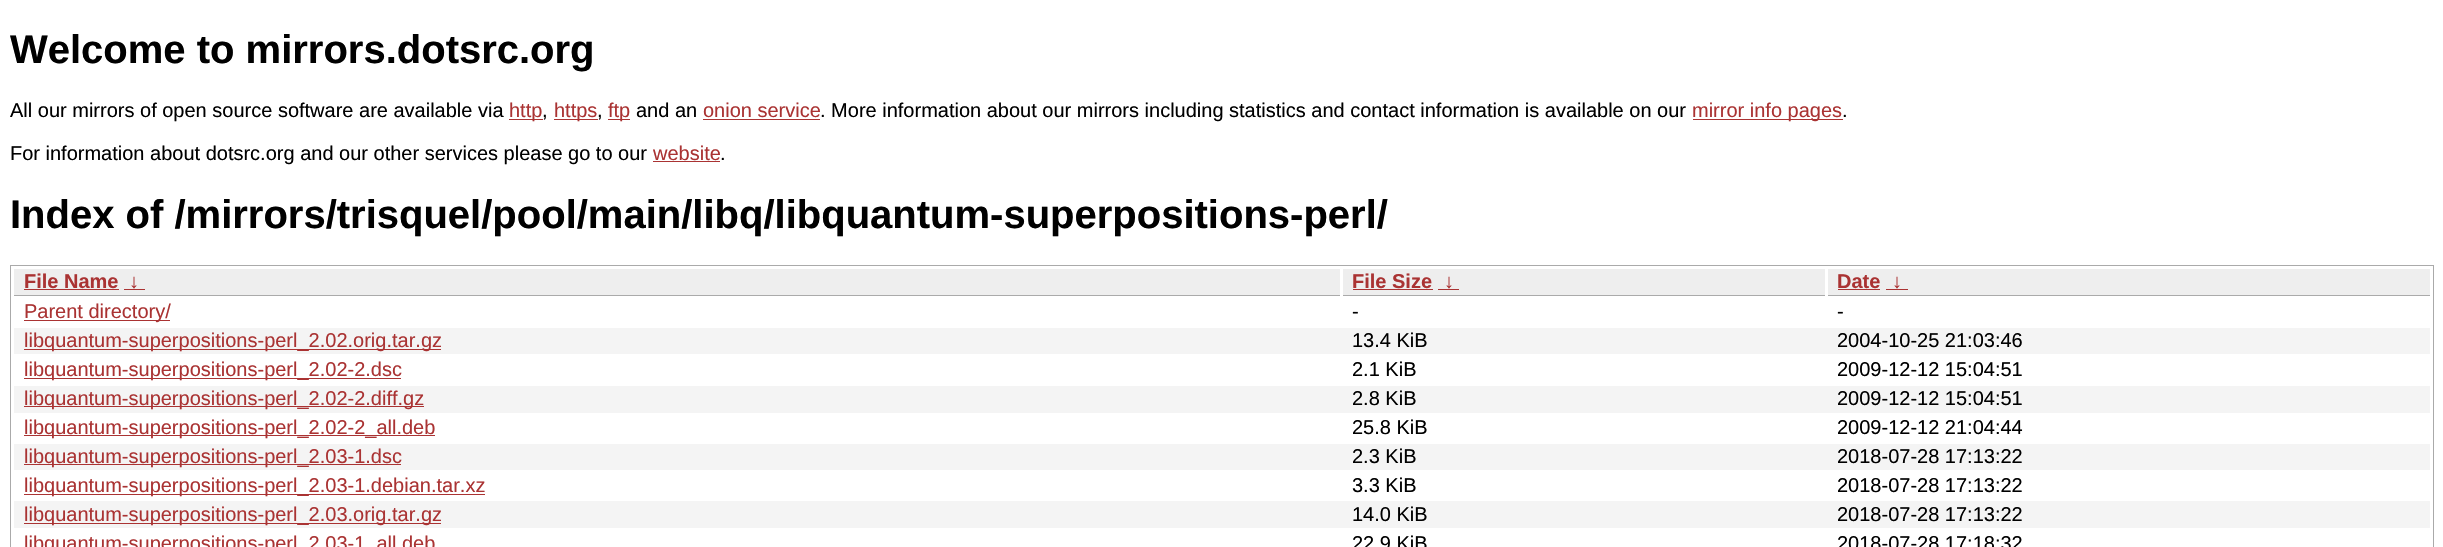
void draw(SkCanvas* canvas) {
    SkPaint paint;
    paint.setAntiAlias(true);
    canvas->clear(0xFFFFFFFF);
    SkFont font1(fontMgr->matchFamilyStyle("Liberation Sans", SkFontStyle::Bold()), 40);
    font1.setSubpixel(true);
    paint.setColor(0xFF000000);
    canvas->drawString("Welcome to mirrors.dotsrc.org", 10, 63, font1, paint);
    SkFont font2(fontMgr->matchFamilyStyle("Liberation Sans", SkFontStyle::Normal()), 20);
    font2.setSubpixel(true);
    canvas->drawString("All our mirrors of open source software are available via", 10, 117, font2, paint);
    paint.setColor(0xFFAA3333);
    canvas->drawRect(SkRect::MakeXYWH(509, 119, 34, 1), paint);
    canvas->drawString("http", 509, 117, font2, paint);
    paint.setColor(0xFF000000);
    canvas->drawString(",", 542, 117, font2, paint);
    paint.setColor(0xFFAA3333);
    canvas->drawRect(SkRect::MakeXYWH(554, 119, 44, 1), paint);
    canvas->drawString("https", 554, 117, font2, paint);
    paint.setColor(0xFF000000);
    canvas->drawString(",", 597, 117, font2, paint);
    paint.setColor(0xFFAA3333);
    canvas->drawRect(SkRect::MakeXYWH(608, 119, 22, 1), paint);
    canvas->drawString("ftp", 608, 117, font2, paint);
    paint.setColor(0xFF000000);
    canvas->drawString("and an", 636, 117, font2, paint);
    paint.setColor(0xFFAA3333);
    canvas->drawString("onion service", 703, 117, font2, paint);
    canvas->drawRect(SkRect::MakeXYWH(703, 119, 117, 1), paint);
    paint.setColor(0xFF000000);
    canvas->drawString(". More information about our mirrors including statistics and contact information is available on our", 820, 117, font2, paint);
    paint.setColor(0xFFAA3333);
    canvas->drawRect(SkRect::MakeXYWH(1693, 119, 150, 1), paint);
    canvas->drawString("mirror info pages", 1692, 117, font2, paint);
    paint.setColor(0xFF000000);
    canvas->drawString(".", 1842, 117, font2, paint);
    canvas->drawString("For information about dotsrc.org and our other services please go to our", 10, 160, font2, paint);
    paint.setColor(0xFFAA3333);
    canvas->drawString("website", 653, 160, font2, paint);
    canvas->drawRect(SkRect::MakeXYWH(653, 161, 67, 1), paint);
    paint.setColor(0xFF000000);
    canvas->drawString(".", 720, 160, font2, paint);
    canvas->drawString("Index of /mirrors/trisquel/pool/main/libq/libquantum-superpositions-perl/", 10, 228, font1, paint);
    paint.setStyle(SkPaint::kStroke_Style);
    paint.setStrokeWidth(1);
    paint.setColor(0xFFAAAAAA);
    canvas->drawRect(SkRect::MakeXYWH(10.5f, 265.5f, 2423, 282), paint);
    paint.setStyle(SkPaint::kFill_Style);
    paint.setColor(0xFFEEEEEE);
    canvas->drawRect(SkRect::MakeXYWH(14, 269, 1326, 26), paint);
    paint.setColor(0xFFAAAAAA);
    canvas->drawRect(SkRect::MakeXYWH(14, 295, 1326, 1), paint);
    SkFont font3(fontMgr->matchFamilyStyle("Liberation Sans", SkFontStyle::Bold()), 20);
    font3.setSubpixel(true);
    paint.setColor(0xFFAA3333);
    canvas->drawString("File Name", 24, 288, font3, paint);
    canvas->drawRect(SkRect::MakeXYWH(24, 289, 95, 1), paint);
    canvas->drawString("↓", 129, 288, font3, paint);
    canvas->drawRect(SkRect::MakeXYWH(124, 289, 21, 1), paint);
    paint.setColor(0xFFEEEEEE);
    canvas->drawRect(SkRect::MakeXYWH(1343, 269, 482, 26), paint);
    paint.setColor(0xFFAAAAAA);
    canvas->drawRect(SkRect::MakeXYWH(1343, 295, 482, 1), paint);
    paint.setColor(0xFFAA3333);
    canvas->drawString("File Size", 1352, 288, font3, paint);
    canvas->drawRect(SkRect::MakeXYWH(1353, 289, 80, 1), paint);
    canvas->drawString("↓", 1444, 288, font3, paint);
    canvas->drawRect(SkRect::MakeXYWH(1438, 289, 21, 1), paint);
    paint.setColor(0xFFEEEEEE);
    canvas->drawRect(SkRect::MakeXYWH(1828, 269, 602, 26), paint);
    paint.setColor(0xFFAAAAAA);
    canvas->drawRect(SkRect::MakeXYWH(1828, 295, 602, 1), paint);
    paint.setColor(0xFFAA3333);
    canvas->drawString("Date", 1837, 288, font3, paint);
    canvas->drawRect(SkRect::MakeXYWH(1838, 289, 42, 1), paint);
    canvas->drawString("↓", 1892, 288, font3, paint);
    canvas->drawRect(SkRect::MakeXYWH(1886, 289, 22, 1), paint);
    canvas->drawRect(SkRect::MakeXYWH(24, 320, 146, 1), paint);
    canvas->drawString("Parent directory/", 24, 318, font2, paint);
    paint.setColor(0xFF000000);
    canvas->drawString("-", 1352, 318, font2, paint);
    canvas->drawString("-", 1837, 318, font2, paint);
    paint.setColor(0xFFF4F4F4);
    canvas->drawRect(SkRect::MakeXYWH(14, 328, 2416, 26), paint);
    paint.setColor(0xFFAA3333);
    canvas->drawRect(SkRect::MakeXYWH(24, 349, 417, 1), paint);
    canvas->drawString("libquantum-superpositions-perl_2.02.orig.tar.gz", 24, 347, font2, paint);
    paint.setColor(0xFF000000);
    canvas->drawString("13.4 KiB", 1352, 347, font2, paint);
    canvas->drawString("2004-10-25 21:03:46", 1837, 347, font2, paint);
    paint.setColor(0xFFAA3333);
    canvas->drawRect(SkRect::MakeXYWH(24, 378, 377, 1), paint);
    canvas->drawString("libquantum-superpositions-perl_2.02-2.dsc", 24, 376, font2, paint);
    paint.setColor(0xFF000000);
    canvas->drawString("2.1 KiB", 1352, 376, font2, paint);
    canvas->drawString("2009-12-12 15:04:51", 1837, 376, font2, paint);
    paint.setColor(0xFFF4F4F4);
    canvas->drawRect(SkRect::MakeXYWH(14, 386, 2416, 27), paint);
    paint.setColor(0xFFAA3333);
    canvas->drawRect(SkRect::MakeXYWH(24, 406, 400, 1), paint);
    canvas->drawString("libquantum-superpositions-perl_2.02-2.diff.gz", 24, 405, font2, paint);
    paint.setColor(0xFF000000);
    canvas->drawString("2.8 KiB", 1352, 405, font2, paint);
    canvas->drawString("2009-12-12 15:04:51", 1837, 405, font2, paint);
    paint.setColor(0xFFAA3333);
    canvas->drawRect(SkRect::MakeXYWH(24, 435, 411, 1), paint);
    canvas->drawString("libquantum-superpositions-perl_2.02-2_all.deb", 24, 434, font2, paint);
    paint.setColor(0xFF000000);
    canvas->drawString("25.8 KiB", 1352, 434, font2, paint);
    canvas->drawString("2009-12-12 21:04:44", 1837, 434, font2, paint);
    paint.setColor(0xFFF4F4F4);
    canvas->drawRect(SkRect::MakeXYWH(14, 444, 2416, 26), paint);
    paint.setColor(0xFFAA3333);
    canvas->drawRect(SkRect::MakeXYWH(24, 464, 377, 1), paint);
    canvas->drawString("libquantum-superpositions-perl_2.03-1.dsc", 24, 463, font2, paint);
    paint.setColor(0xFF000000);
    canvas->drawString("2.3 KiB", 1352, 463, font2, paint);
    canvas->drawString("2018-07-28 17:13:22", 1837, 463, font2, paint);
    paint.setColor(0xFFAA3333);
    canvas->drawRect(SkRect::MakeXYWH(24, 494, 461, 1), paint);
    canvas->drawString("libquantum-superpositions-perl_2.03-1.debian.tar.xz", 24, 492, font2, paint);
    paint.setColor(0xFF000000);
    canvas->drawString("3.3 KiB", 1352, 492, font2, paint);
    canvas->drawString("2018-07-28 17:13:22", 1837, 492, font2, paint);
    paint.setColor(0xFFF4F4F4);
    canvas->drawRect(SkRect::MakeXYWH(14, 501, 2416, 27), paint);
    paint.setColor(0xFFAA3333);
    canvas->drawRect(SkRect::MakeXYWH(24, 523, 417, 1), paint);
    canvas->drawString("libquantum-superpositions-perl_2.03.orig.tar.gz", 24, 521, font2, paint);
    paint.setColor(0xFF000000);
    canvas->drawString("14.0 KiB", 1352, 521, font2, paint);
    canvas->drawString("2018-07-28 17:13:22", 1837, 521, font2, paint);
    paint.setColor(0xFFAA3333);
    canvas->drawString("libquantum-superpositions-perl_2.03-1_all.deb", 24, 550, font2, paint);
    paint.setColor(0xFF000000);
    canvas->drawString("22.9 KiB", 1352, 550, font2, paint);
    canvas->drawString("2018-07-28 17:18:32", 1837, 550, font2, paint);
}
